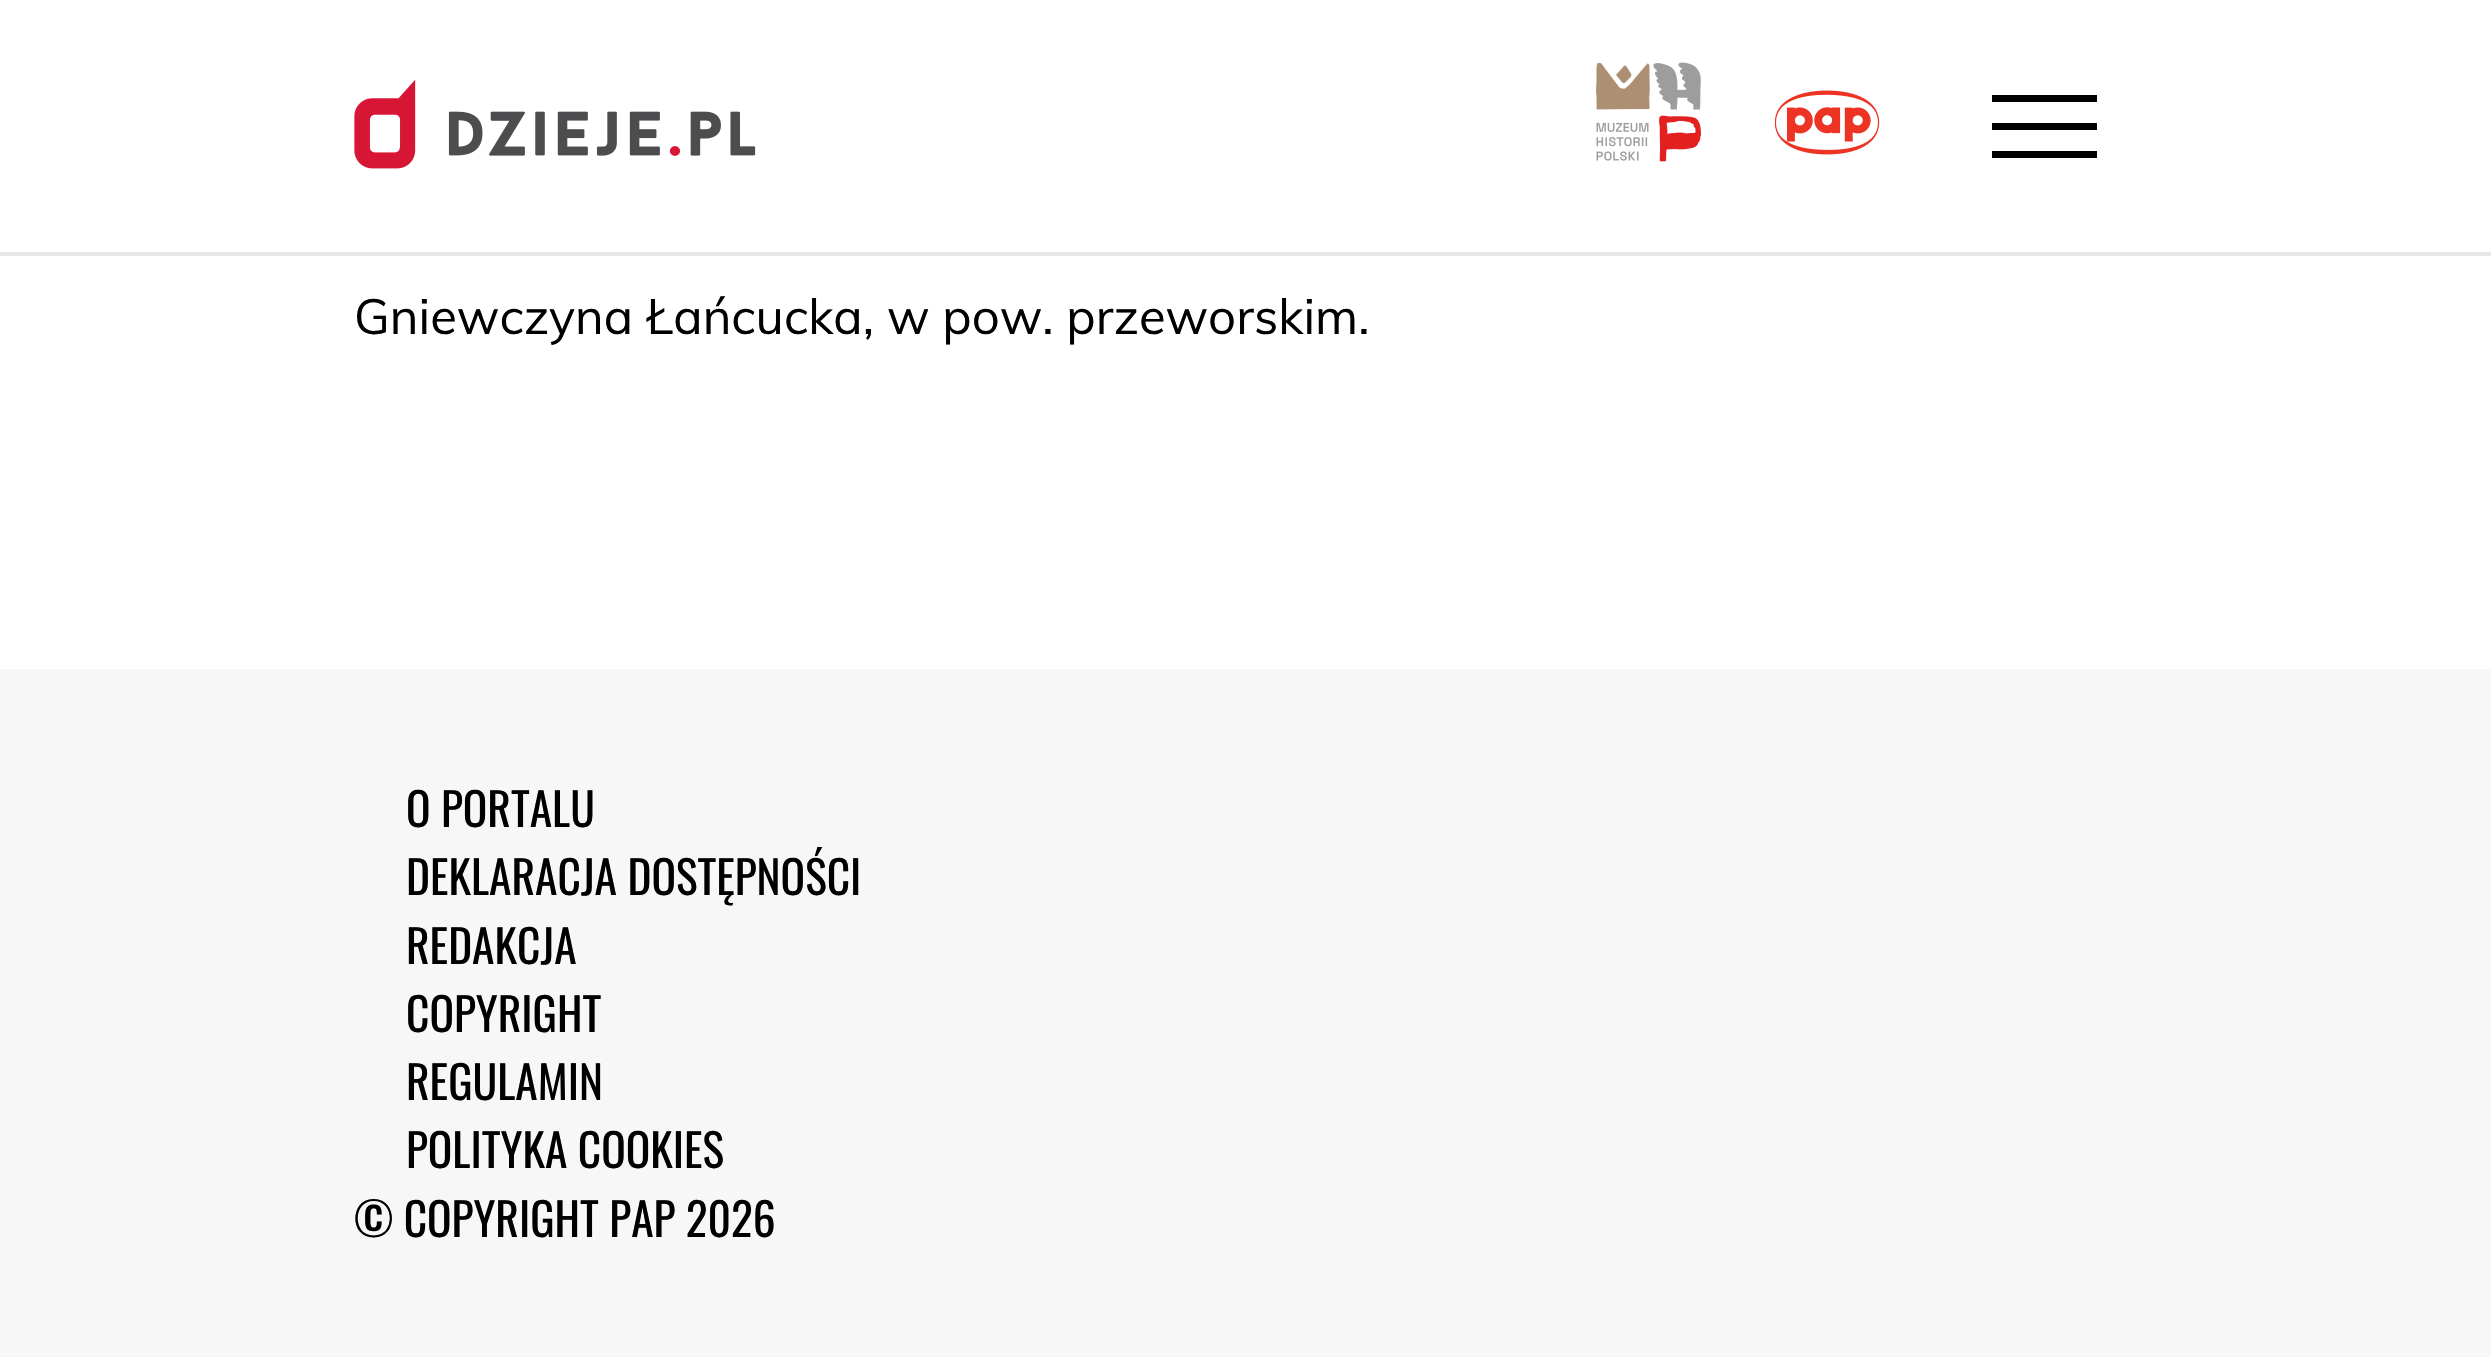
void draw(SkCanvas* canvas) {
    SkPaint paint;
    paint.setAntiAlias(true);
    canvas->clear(0xFFFFFFFF);
    paint.setColor(0xFFE7E7E7);
    canvas->drawRect(SkRect::MakeXYWH(0, 252, 2491, 4), paint);
    canvas->drawImageRect(SkImages::DeferredFromEncodedData(SkData::MakeFromFileName("img1.png")), SkRect::MakeXYWH(354, 79, 402, 90), SkSamplingOptions());
    canvas->drawImageRect(SkImages::DeferredFromEncodedData(SkData::MakeFromFileName("img2.png")), SkRect::MakeXYWH(1596, 62, 105, 100), SkSamplingOptions());
    canvas->drawImageRect(SkImages::DeferredFromEncodedData(SkData::MakeFromFileName("img3.png")), SkRect::MakeXYWH(1775, 90, 105, 65), SkSamplingOptions());
    paint.setColor(0xFF000000);
    canvas->drawRect(SkRect::MakeXYWH(1992, 95, 105, 7), paint);
    canvas->drawRect(SkRect::MakeXYWH(1992, 123, 105, 7), paint);
    canvas->drawRect(SkRect::MakeXYWH(1992, 151, 105, 7), paint);
    SkFont font1(fontMgr->matchFamilyStyle("Muli", SkFontStyle::Normal()), 49);
    font1.setSubpixel(true);
    canvas->drawString("Gniewczyna Łańcucka, w pow. przeworskim.", 354, 334, font1, paint);
    paint.setColor(0xFFF7F7F7);
    canvas->drawRect(SkRect::MakeXYWH(0, 669, 2491, 688), paint);
    SkFont font2(fontMgr->matchFamilyStyle("Oswald", SkFontStyle::Normal()), 45.5f);
    font2.setSubpixel(true);
    paint.setColor(0xFF000000);
    canvas->drawString("O PORTALU", 406, 827, font2, paint);
    canvas->drawString("DEKLARACJA DOSTĘPNOŚCI", 406, 895, font2, paint);
    canvas->drawString("REDAKCJA", 406, 964, font2, paint);
    canvas->drawString("COPYRIGHT", 406, 1032, font2, paint);
    canvas->drawString("REGULAMIN", 406, 1100, font2, paint);
    canvas->drawString("POLITYKA COOKIES", 406, 1168, font2, paint);
    canvas->drawString("© COPYRIGHT PAP 2026", 354, 1237, font2, paint);
}
